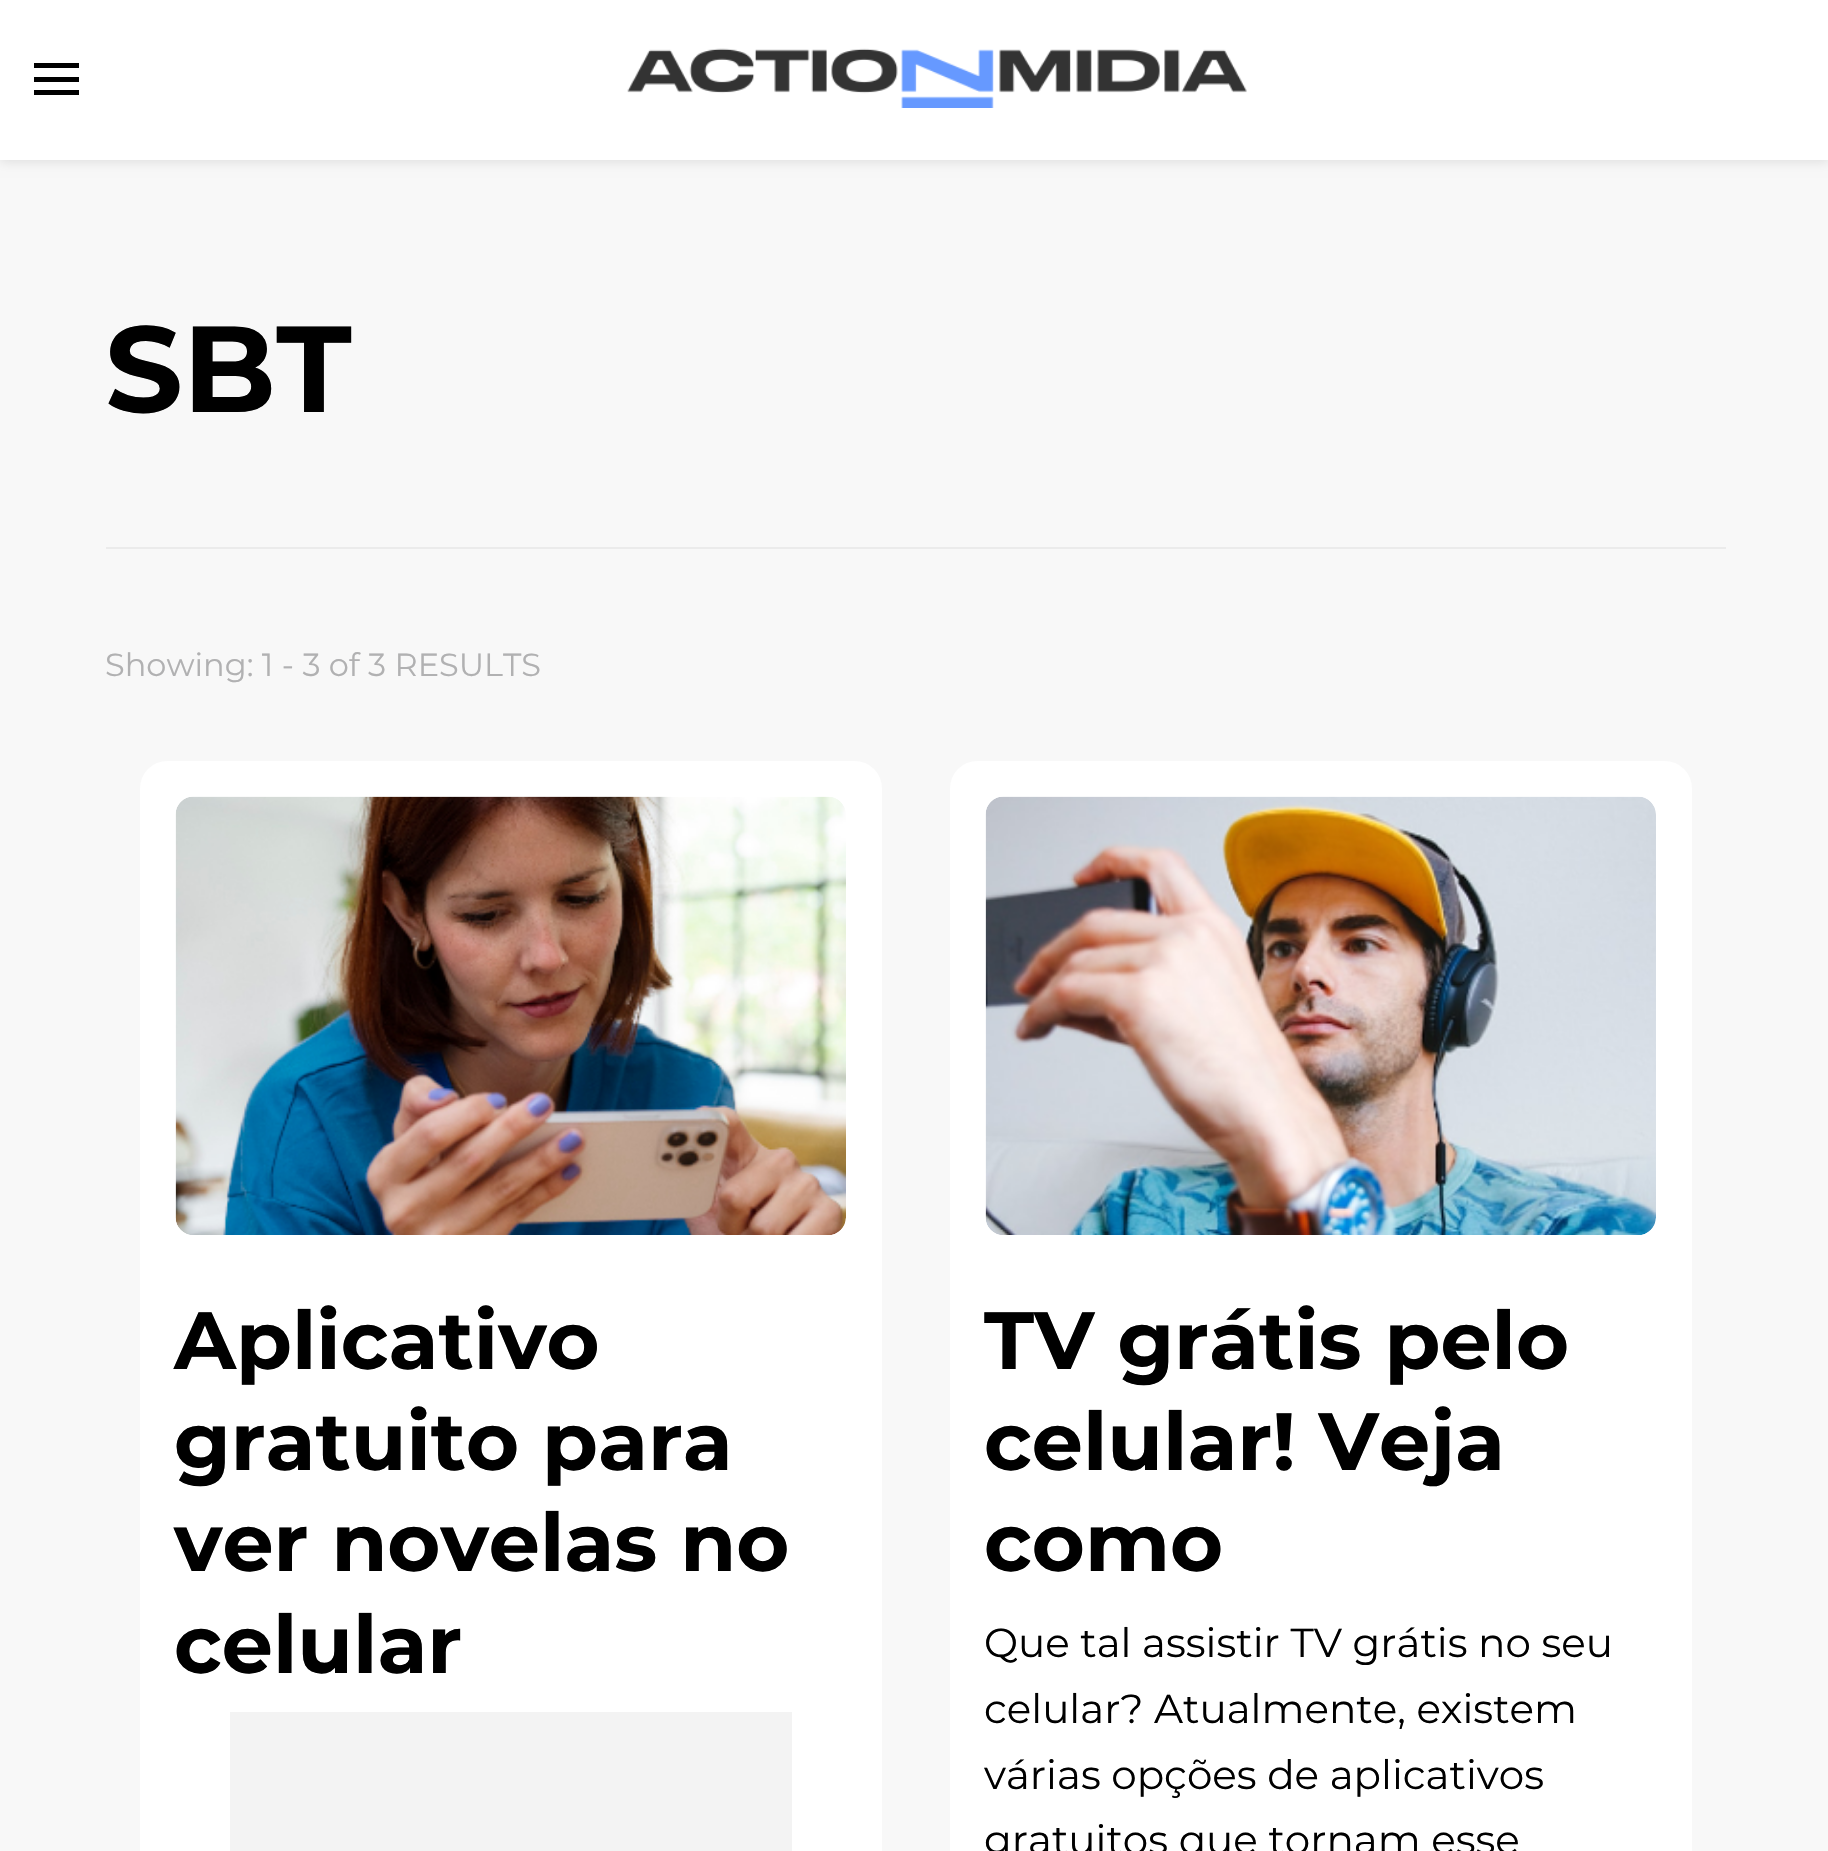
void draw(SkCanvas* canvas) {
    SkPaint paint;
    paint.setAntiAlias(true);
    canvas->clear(0xFFF8F8F8);
    paint.setColor(0x1A000000);
    paint.setMaskFilter(SkMaskFilter::MakeBlur(kNormal_SkBlurStyle, 5.5f));
    canvas->drawRect(SkRect::MakeXYWH(0, 2, 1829, 160), paint);
    paint.setMaskFilter(nullptr);
    paint.setColor(0xFFFFFFFF);
    canvas->drawRect(SkRect::MakeXYWH(0, 0, 1828, 160), paint);
    paint.setColor(0xFF000000);
    canvas->drawRect(SkRect::MakeXYWH(34, 63, 45, 5), paint);
    canvas->drawRect(SkRect::MakeXYWH(34, 77, 45, 5), paint);
    canvas->drawRect(SkRect::MakeXYWH(34, 90, 45, 5), paint);
    canvas->drawImageRect(SkImages::DeferredFromEncodedData(SkData::MakeFromFileName("img1.png")), SkRect::MakeXYWH(627, 48, 620, 60), SkSamplingOptions());
    paint.setColor(0xFFEBEBEB);
    canvas->drawRect(SkRect::MakeXYWH(106, 547, 1620, 2), paint);
    SkFont font1(fontMgr->matchFamilyStyle("Montserrat", SkFontStyle::Bold()), 122);
    font1.setSubpixel(true);
    paint.setColor(0xFF000000);
    canvas->drawString("SBT", 105, 412, font1, paint);
    SkFont font2(fontMgr->matchFamilyStyle("Montserrat", SkFontStyle::Normal()), 32);
    font2.setSubpixel(true);
    paint.setColor(0xFFB1B1B2);
    canvas->drawString("Showing: 1 - 3 of 3 RESULTS", 105, 676, font2, paint);
    paint.setColor(0xFFFFFFFF);
    canvas->drawRoundRect(SkRect::MakeXYWH(140, 761, 742, 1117), 27, 27, paint);
    canvas->drawImageRect(SkImages::DeferredFromEncodedData(SkData::MakeFromFileName("img2.png")), SkRect::MakeXYWH(175, 796, 671, 439), SkSamplingOptions());
    SkFont font3(fontMgr->matchFamilyStyle("Montserrat", SkFontStyle::Bold()), 81);
    font3.setSubpixel(true);
    paint.setColor(0xFF000000);
    canvas->drawString("Aplicativo", 174, 1369, font3, paint);
    canvas->drawString("gratuito para", 174, 1470, font3, paint);
    canvas->drawString("ver novelas no", 174, 1571, font3, paint);
    canvas->drawString("celular", 174, 1673, font3, paint);
    paint.setColor(0xFFF3F3F3);
    canvas->drawRect(SkRect::MakeXYWH(230, 1712, 562, 139), paint);
    paint.setColor(0xFFFFFFFF);
    canvas->drawRoundRect(SkRect::MakeXYWH(950, 761, 742, 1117), 27, 27, paint);
    canvas->drawImageRect(SkImages::DeferredFromEncodedData(SkData::MakeFromFileName("img3.png")), SkRect::MakeXYWH(985, 796, 671, 439), SkSamplingOptions());
    paint.setColor(0xFF000000);
    canvas->drawString("TV grátis pelo", 984, 1369, font3, paint);
    canvas->drawString("celular! Veja", 984, 1470, font3, paint);
    canvas->drawString("como", 984, 1571, font3, paint);
    SkFont font4(fontMgr->matchFamilyStyle("Montserrat", SkFontStyle::Normal()), 40.5f);
    font4.setSubpixel(true);
    canvas->drawString("Que tal assistir TV grátis no seu", 984, 1657, font4, paint);
    canvas->drawString("celular? Atualmente, existem", 984, 1723, font4, paint);
    canvas->drawString("várias opções de aplicativos", 984, 1789, font4, paint);
    canvas->drawString("gratuitos que tornam esse", 984, 1854, font4, paint);
}
